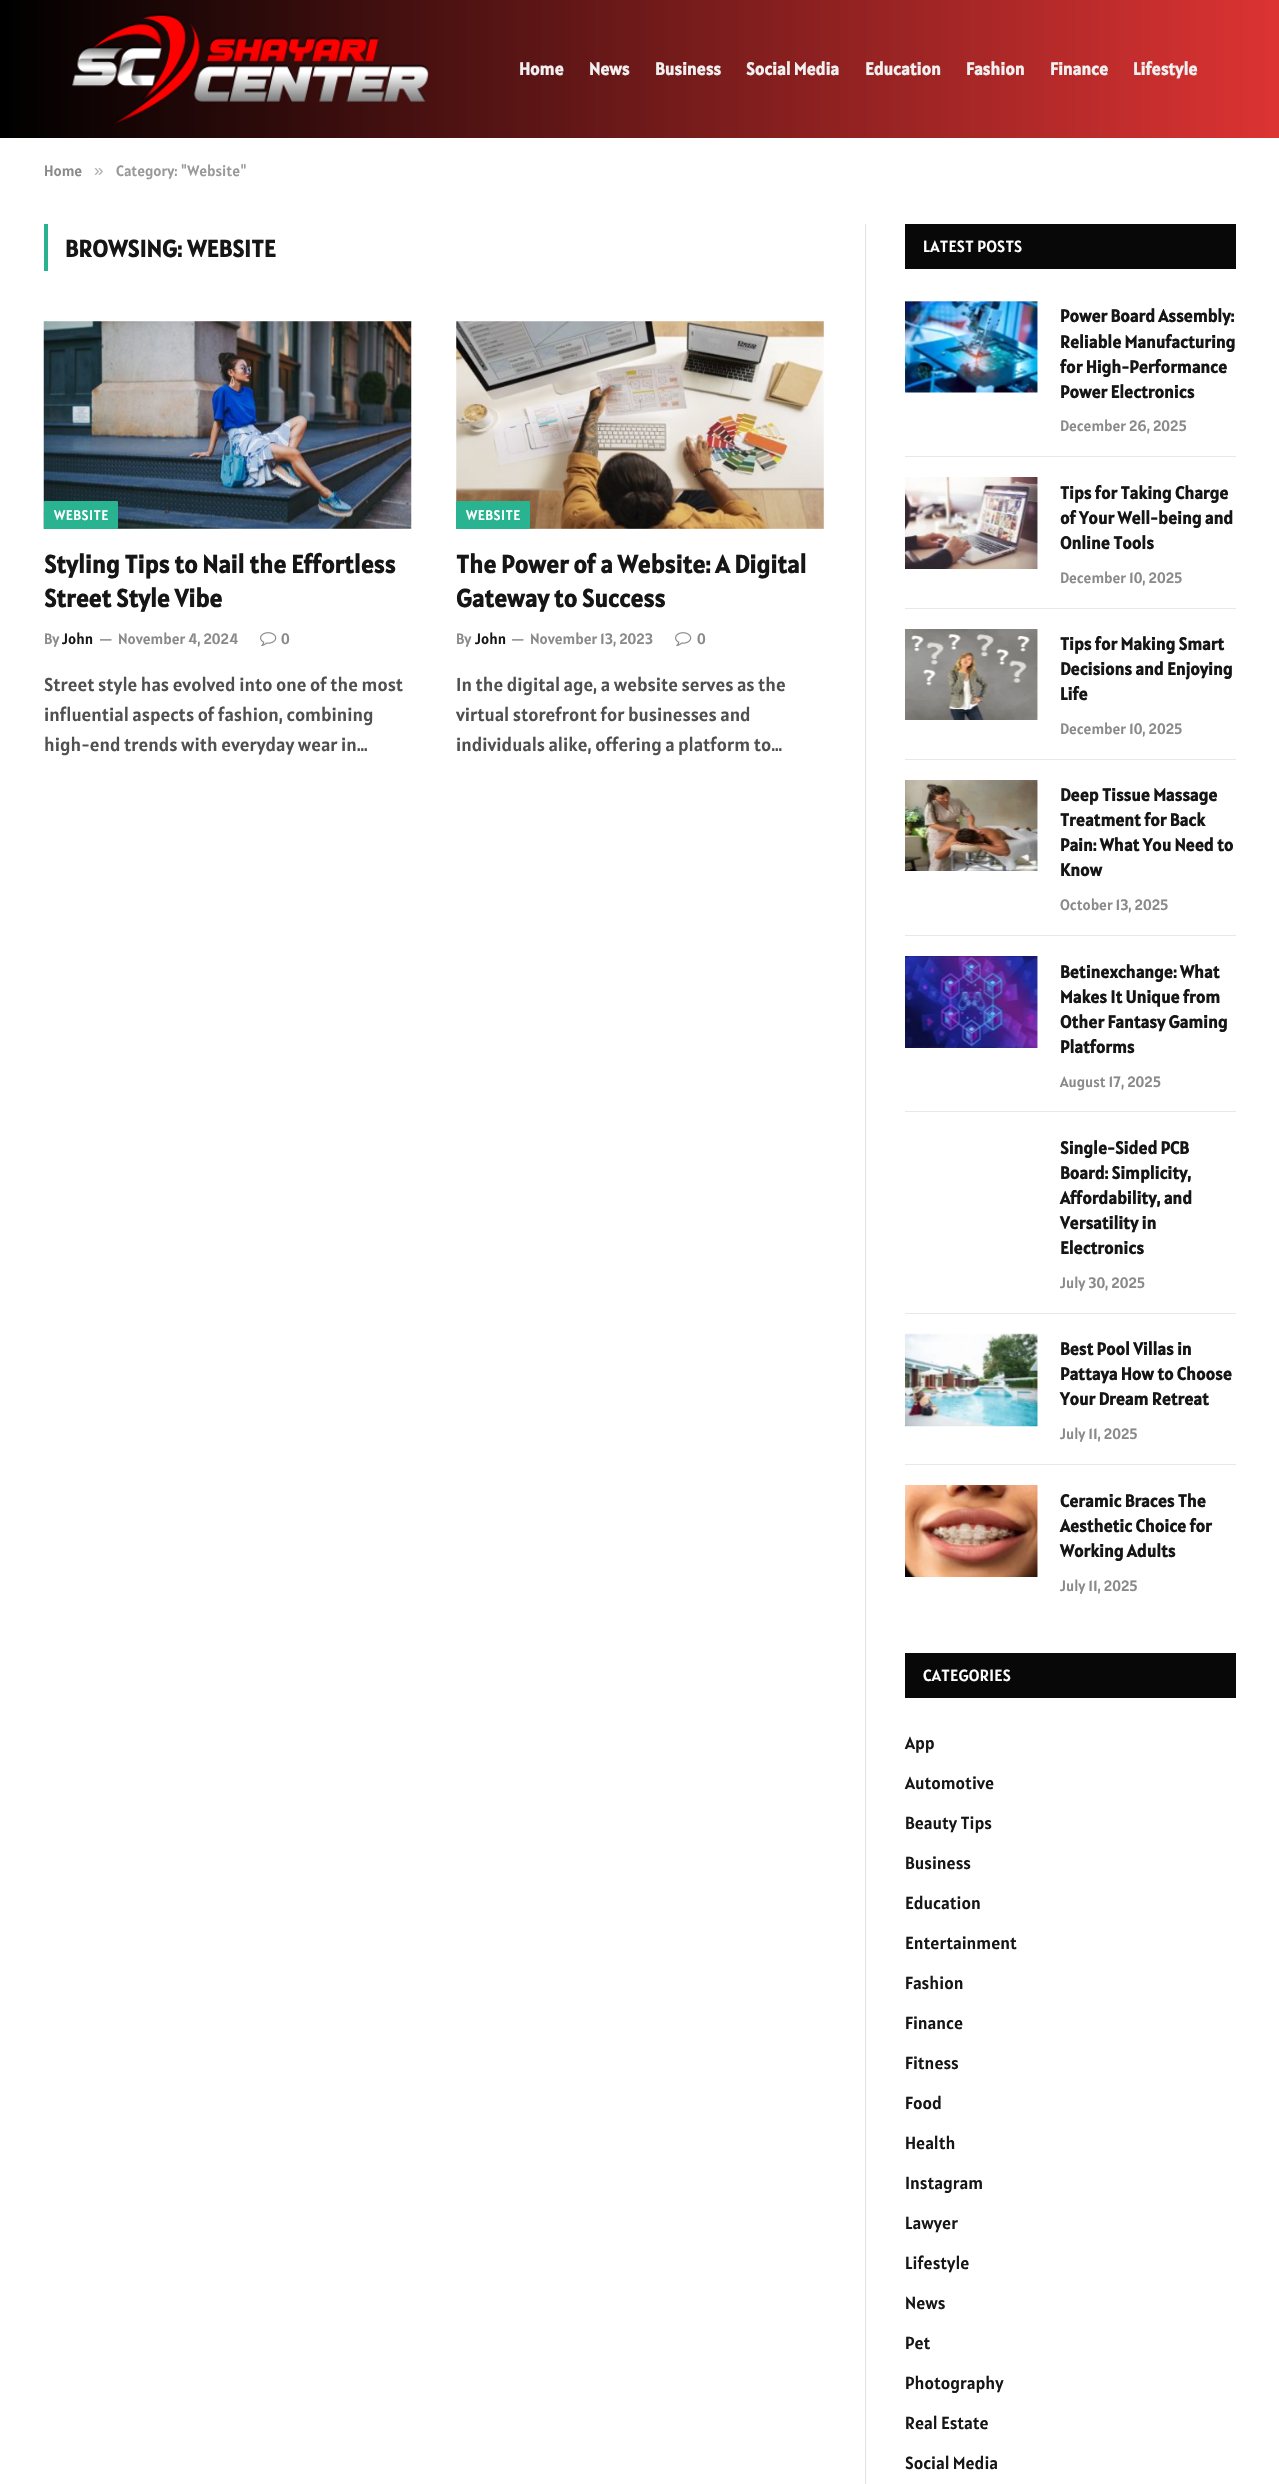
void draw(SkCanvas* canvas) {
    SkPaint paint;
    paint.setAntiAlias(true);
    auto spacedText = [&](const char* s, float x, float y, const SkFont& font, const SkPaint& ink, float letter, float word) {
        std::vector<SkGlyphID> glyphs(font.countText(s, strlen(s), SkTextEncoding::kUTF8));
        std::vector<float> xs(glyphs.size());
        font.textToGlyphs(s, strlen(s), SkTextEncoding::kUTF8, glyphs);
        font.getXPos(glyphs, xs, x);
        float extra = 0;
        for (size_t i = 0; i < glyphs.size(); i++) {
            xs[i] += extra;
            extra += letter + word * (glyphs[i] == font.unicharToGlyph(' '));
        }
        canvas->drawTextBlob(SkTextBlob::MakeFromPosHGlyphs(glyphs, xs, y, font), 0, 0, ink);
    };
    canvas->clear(0xFFFFFFFF);
    {
        const SkColor colors[] = {0xFF000000, 0xFFDD3333};
        const float stops[] = {0, 1};
        const SkPoint ends[] = {{0, 69}, {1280, 69}};
        paint.setShader(SkGradientShader::MakeLinear(ends, colors, stops, 2, SkTileMode::kClamp));
        paint.setAlpha(255);
    }
    canvas->drawRect(SkRect::MakeXYWH(0, 0, 1279, 138), paint);
    canvas->drawImageRect(SkImages::DeferredFromEncodedData(SkData::MakeFromFileName("img1.png")), SkRect::MakeXYWH(72, 13, 357, 111), SkSamplingOptions());
    SkFont font1(fontMgr->matchFamilyStyle("Alatsi", SkFontStyle::Bold()), 17.5f);
    font1.setSubpixel(true);
    paint.setShader(nullptr);
    paint.setColor(0xFFF0F0F0);
    canvas->drawString("Home", 519, 75, font1, paint);
    canvas->drawString("News", 589, 75, font1, paint);
    canvas->drawString("Business", 655, 75, font1, paint);
    canvas->drawString("Social Media", 746, 75, font1, paint);
    canvas->drawString("Education", 865, 75, font1, paint);
    canvas->drawString("Fashion", 966, 75, font1, paint);
    canvas->drawString("Finance", 1050, 75, font1, paint);
    canvas->drawString("Lifestyle", 1133, 75, font1, paint);
    SkFont font2(fontMgr->matchFamilyStyle("Alatsi", SkFontStyle::Normal()), 15);
    font2.setSubpixel(true);
    paint.setColor(0xFF8A8A8A);
    canvas->drawString("Home", 44, 176, font2, paint);
    SkFont font3(fontMgr->matchFamilyStyle("Liberation Sans", SkFontStyle::Normal()), 17);
    font3.setSubpixel(true);
    paint.setColor(0xFFADADAD);
    canvas->drawString("»", 94, 176, font3, paint);
    paint.setColor(0xFF999999);
    canvas->drawString("Category: \"Website\"", 116, 176, font2, paint);
    paint.setColor(0xFF2AB391);
    canvas->drawRect(SkRect::MakeXYWH(44, 224, 4, 47), paint);
    SkFont font4(fontMgr->matchFamilyStyle("Alatsi", SkFontStyle::Bold()), 23.75f);
    font4.setSubpixel(true);
    paint.setColor(0xFF161616);
    spacedText("BROWSING: WEBSITE", 65, 257, font4, paint, 0.25f, 0);
    canvas->drawImageRect(SkImages::DeferredFromEncodedData(SkData::MakeFromFileName("img2.png")), SkRect::MakeXYWH(43, 321, 369, 208), SkSamplingOptions());
    paint.setColor(0xFF2AB391);
    canvas->drawRoundRect(SkRect::MakeXYWH(44, 501, 74, 28), 1, 1, paint);
    SkFont font5(fontMgr->matchFamilyStyle("Alatsi", SkFontStyle::Normal()), 14);
    font5.setSubpixel(true);
    paint.setColor(0xFFFFFFFF);
    spacedText("WEBSITE", 54, 520, font5, paint, 0.5f, 0);
    SkFont font6(fontMgr->matchFamilyStyle("Alatsi", SkFontStyle::Bold()), 25);
    font6.setSubpixel(true);
    paint.setColor(0xFF161616);
    canvas->drawString("Styling Tips to Nail the Effortless", 44, 573, font6, paint);
    canvas->drawString("Street Style Vibe", 44, 607, font6, paint);
    paint.setColor(0xFF8A8A8A);
    canvas->drawString("By", 44, 644, font2, paint);
    paint.setColor(0xFF161616);
    canvas->drawString("John", 62, 644, font2, paint);
    paint.setColor(0xFF8A8A8A);
    canvas->drawString("—", 99, 644, font5, paint);
    canvas->drawString("November 4, 2024", 118, 644, font2, paint);
    canvas->drawImageRect(SkImages::DeferredFromEncodedData(SkData::MakeFromFileName("img3.png")), SkRect::MakeXYWH(260, 632, 17, 14), SkSamplingOptions());
    canvas->drawString("0", 281, 644, font2, paint);
    SkFont font7(fontMgr->matchFamilyStyle("Alatsi", SkFontStyle::Normal()), 18.75f);
    font7.setSubpixel(true);
    paint.setColor(0xFF505050);
    canvas->drawString("Street style has evolved into one of the most", 44, 691, font7, paint);
    canvas->drawString("influential aspects of fashion, combining", 44, 721, font7, paint);
    canvas->drawString("high-end trends with everyday wear in…", 44, 751, font7, paint);
    canvas->drawImageRect(SkImages::DeferredFromEncodedData(SkData::MakeFromFileName("img4.png")), SkRect::MakeXYWH(456, 321, 368, 208), SkSamplingOptions());
    paint.setColor(0xFF2AB391);
    canvas->drawRoundRect(SkRect::MakeXYWH(456, 501, 74, 28), 1, 1, paint);
    paint.setColor(0xFFFFFFFF);
    spacedText("WEBSITE", 466, 520, font5, paint, 0.5f, 0);
    paint.setColor(0xFF161616);
    canvas->drawString("The Power of a Website: A Digital", 456, 573, font6, paint);
    canvas->drawString("Gateway to Success", 456, 607, font6, paint);
    paint.setColor(0xFF8A8A8A);
    canvas->drawString("By", 456, 644, font2, paint);
    paint.setColor(0xFF161616);
    canvas->drawString("John", 475, 644, font2, paint);
    paint.setColor(0xFF8A8A8A);
    canvas->drawString("—", 511, 644, font5, paint);
    canvas->drawString("November 13, 2023", 530, 644, font2, paint);
    canvas->drawImageRect(SkImages::DeferredFromEncodedData(SkData::MakeFromFileName("img3.png")), SkRect::MakeXYWH(675, 632, 17, 14), SkSamplingOptions());
    canvas->drawString("0", 697, 644, font2, paint);
    paint.setColor(0xFF505050);
    canvas->drawString("In the digital age, a website serves as the", 456, 691, font7, paint);
    canvas->drawString("virtual storefront for businesses and", 456, 721, font7, paint);
    canvas->drawString("individuals alike, offering a platform to…", 456, 751, font7, paint);
    paint.setColor(0xFFE2E2E2);
    canvas->drawRect(SkRect::MakeXYWH(865, 224, 1, 2260), paint);
    paint.setColor(0xFF080808);
    canvas->drawRect(SkRect::MakeXYWH(905, 224, 331, 45), paint);
    SkFont font8(fontMgr->matchFamilyStyle("Alatsi", SkFontStyle::Normal()), 16.25f);
    font8.setSubpixel(true);
    paint.setColor(0xFFFFFFFF);
    spacedText("LATEST POSTS", 923, 252, font8, paint, 0.25f, 0);
    canvas->drawImageRect(SkImages::DeferredFromEncodedData(SkData::MakeFromFileName("img5.png")), SkRect::MakeXYWH(905, 301, 133, 92), SkSamplingOptions());
    paint.setColor(0xFF161616);
    canvas->drawString("Power Board Assembly:", 1060, 322, font1, paint);
    canvas->drawString("Reliable Manufacturing", 1060, 348, font1, paint);
    canvas->drawString("for High-Performance", 1060, 373, font1, paint);
    canvas->drawString("Power Electronics", 1060, 398, font1, paint);
    paint.setColor(0xFF8A8A8A);
    canvas->drawString("December 26, 2025", 1060, 431, font2, paint);
    paint.setColor(0xFFE8E8E8);
    canvas->drawRect(SkRect::MakeXYWH(905, 456, 331, 1), paint);
    canvas->drawImageRect(SkImages::DeferredFromEncodedData(SkData::MakeFromFileName("img6.png")), SkRect::MakeXYWH(905, 477, 133, 92), SkSamplingOptions());
    paint.setColor(0xFF161616);
    canvas->drawString("Tips for Taking Charge", 1060, 499, font1, paint);
    canvas->drawString("of Your Well-being and", 1060, 524, font1, paint);
    canvas->drawString("Online Tools", 1060, 549, font1, paint);
    paint.setColor(0xFF8A8A8A);
    canvas->drawString("December 10, 2025", 1060, 583, font2, paint);
    paint.setColor(0xFFE8E8E8);
    canvas->drawRect(SkRect::MakeXYWH(905, 608, 331, 1), paint);
    canvas->drawImageRect(SkImages::DeferredFromEncodedData(SkData::MakeFromFileName("img7.png")), SkRect::MakeXYWH(905, 629, 133, 91), SkSamplingOptions());
    paint.setColor(0xFF161616);
    canvas->drawString("Tips for Making Smart", 1060, 650, font1, paint);
    canvas->drawString("Decisions and Enjoying", 1060, 675, font1, paint);
    canvas->drawString("Life", 1060, 700, font1, paint);
    paint.setColor(0xFF8A8A8A);
    canvas->drawString("December 10, 2025", 1060, 734, font2, paint);
    paint.setColor(0xFFE8E8E8);
    canvas->drawRect(SkRect::MakeXYWH(905, 759, 331, 1), paint);
    canvas->drawImageRect(SkImages::DeferredFromEncodedData(SkData::MakeFromFileName("img8.png")), SkRect::MakeXYWH(905, 780, 133, 91), SkSamplingOptions());
    paint.setColor(0xFF161616);
    canvas->drawString("Deep Tissue Massage", 1060, 801, font1, paint);
    canvas->drawString("Treatment for Back", 1060, 826, font1, paint);
    canvas->drawString("Pain: What You Need to", 1060, 851, font1, paint);
    canvas->drawString("Know", 1060, 876, font1, paint);
    paint.setColor(0xFF8A8A8A);
    canvas->drawString("October 13, 2025", 1060, 910, font2, paint);
    paint.setColor(0xFFE8E8E8);
    canvas->drawRect(SkRect::MakeXYWH(905, 935, 331, 1), paint);
    canvas->drawImageRect(SkImages::DeferredFromEncodedData(SkData::MakeFromFileName("img9.png")), SkRect::MakeXYWH(905, 956, 133, 92), SkSamplingOptions());
    paint.setColor(0xFF161616);
    canvas->drawString("Betinexchange: What", 1060, 978, font1, paint);
    canvas->drawString("Makes It Unique from", 1060, 1003, font1, paint);
    canvas->drawString("Other Fantasy Gaming", 1060, 1028, font1, paint);
    canvas->drawString("Platforms", 1060, 1053, font1, paint);
    paint.setColor(0xFF8A8A8A);
    canvas->drawString("August 17, 2025", 1060, 1087, font2, paint);
    paint.setColor(0xFFE8E8E8);
    canvas->drawRect(SkRect::MakeXYWH(905, 1111, 331, 1), paint);
    paint.setColor(0xFF161616);
    canvas->drawString("Single-Sided PCB", 1060, 1154, font1, paint);
    canvas->drawString("Board: Simplicity,", 1060, 1179, font1, paint);
    canvas->drawString("Affordability, and", 1060, 1204, font1, paint);
    canvas->drawString("Versatility in", 1060, 1229, font1, paint);
    canvas->drawString("Electronics", 1060, 1254, font1, paint);
    paint.setColor(0xFF8A8A8A);
    canvas->drawString("July 30, 2025", 1060, 1288, font2, paint);
    paint.setColor(0xFFE8E8E8);
    canvas->drawRect(SkRect::MakeXYWH(905, 1313, 331, 1), paint);
    canvas->drawImageRect(SkImages::DeferredFromEncodedData(SkData::MakeFromFileName("img10.png")), SkRect::MakeXYWH(905, 1333, 133, 94), SkSamplingOptions());
    paint.setColor(0xFF161616);
    canvas->drawString("Best Pool Villas in", 1060, 1355, font1, paint);
    canvas->drawString("Pattaya How to Choose", 1060, 1380, font1, paint);
    canvas->drawString("Your Dream Retreat", 1060, 1405, font1, paint);
    paint.setColor(0xFF8A8A8A);
    canvas->drawString("July 11, 2025", 1060, 1439, font2, paint);
    paint.setColor(0xFFE8E8E8);
    canvas->drawRect(SkRect::MakeXYWH(905, 1464, 331, 1), paint);
    canvas->drawImageRect(SkImages::DeferredFromEncodedData(SkData::MakeFromFileName("img11.png")), SkRect::MakeXYWH(905, 1485, 133, 92), SkSamplingOptions());
    paint.setColor(0xFF161616);
    canvas->drawString("Ceramic Braces The", 1060, 1507, font1, paint);
    canvas->drawString("Aesthetic Choice for", 1060, 1532, font1, paint);
    canvas->drawString("Working Adults", 1060, 1557, font1, paint);
    paint.setColor(0xFF8A8A8A);
    canvas->drawString("July 11, 2025", 1060, 1591, font2, paint);
    paint.setColor(0xFF080808);
    canvas->drawRect(SkRect::MakeXYWH(905, 1653, 331, 45), paint);
    paint.setColor(0xFFFFFFFF);
    spacedText("CATEGORIES", 923, 1681, font8, paint, 0.25f, 0);
    SkFont font9(fontMgr->matchFamilyStyle("Alatsi", SkFontStyle::Normal()), 17.5f);
    font9.setSubpixel(true);
    paint.setColor(0xFF161616);
    canvas->drawString("App", 905, 1749, font9, paint);
    canvas->drawString("Automotive", 905, 1789, font9, paint);
    canvas->drawString("Beauty Tips", 905, 1829, font9, paint);
    canvas->drawString("Business", 905, 1869, font9, paint);
    canvas->drawString("Education", 905, 1909, font9, paint);
    canvas->drawString("Entertainment", 905, 1949, font9, paint);
    canvas->drawString("Fashion", 905, 1989, font9, paint);
    canvas->drawString("Finance", 905, 2029, font9, paint);
    canvas->drawString("Fitness", 905, 2069, font9, paint);
    canvas->drawString("Food", 905, 2109, font9, paint);
    canvas->drawString("Health", 905, 2149, font9, paint);
    canvas->drawString("Instagram", 905, 2189, font9, paint);
    canvas->drawString("Lawyer", 905, 2229, font9, paint);
    canvas->drawString("Lifestyle", 905, 2269, font9, paint);
    canvas->drawString("News", 905, 2309, font9, paint);
    canvas->drawString("Pet", 905, 2349, font9, paint);
    canvas->drawString("Photography", 905, 2389, font9, paint);
    canvas->drawString("Real Estate", 905, 2429, font9, paint);
    canvas->drawString("Social Media", 905, 2469, font9, paint);
}
